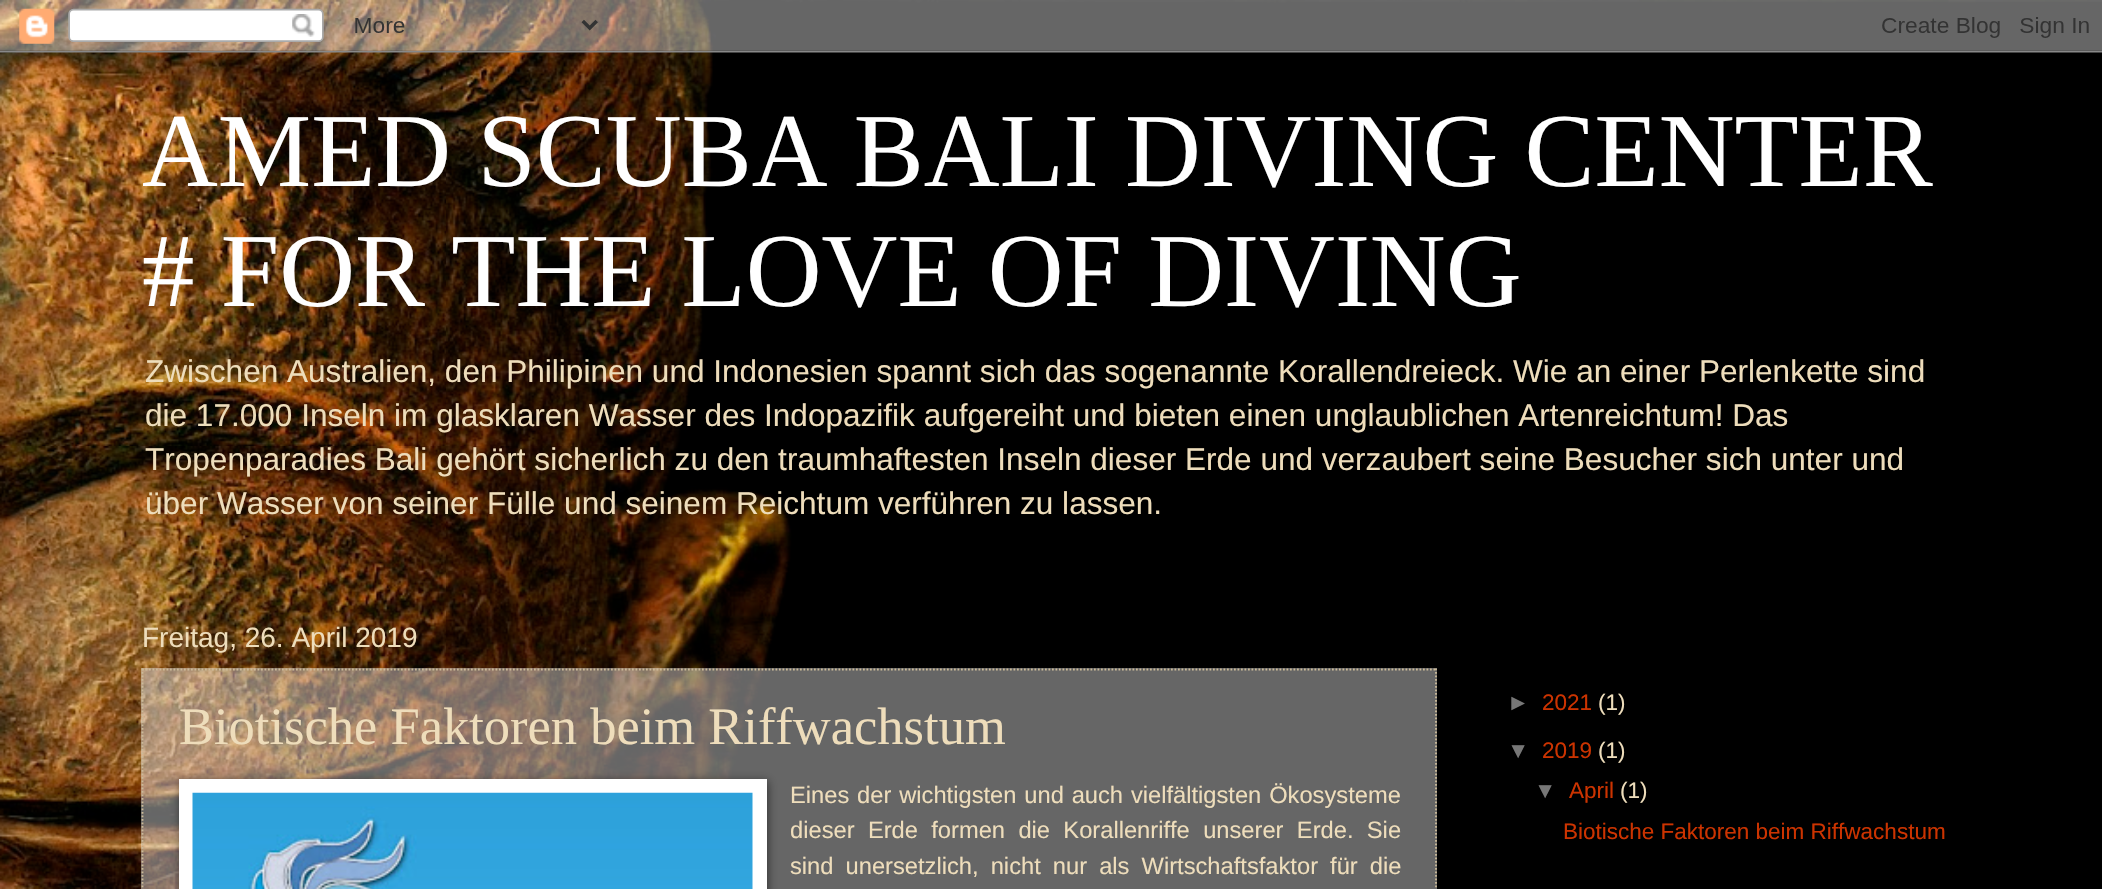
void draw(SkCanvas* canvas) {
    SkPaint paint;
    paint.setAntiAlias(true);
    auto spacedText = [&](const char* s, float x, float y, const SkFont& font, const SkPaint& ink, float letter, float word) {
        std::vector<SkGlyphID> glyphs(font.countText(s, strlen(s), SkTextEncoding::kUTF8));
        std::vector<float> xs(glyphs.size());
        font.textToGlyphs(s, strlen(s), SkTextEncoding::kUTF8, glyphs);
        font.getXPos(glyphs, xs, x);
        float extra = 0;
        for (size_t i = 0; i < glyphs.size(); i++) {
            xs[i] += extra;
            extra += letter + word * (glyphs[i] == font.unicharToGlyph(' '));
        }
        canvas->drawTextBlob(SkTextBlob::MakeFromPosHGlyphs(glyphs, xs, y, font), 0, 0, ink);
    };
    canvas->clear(0xFFFFFFFF);
    canvas->drawImageRect(SkImages::DeferredFromEncodedData(SkData::MakeFromFileName("img1.png")), SkRect::MakeXYWH(0, 0, 2102, 889), SkSamplingOptions());
    canvas->drawImageRect(SkImages::DeferredFromEncodedData(SkData::MakeFromFileName("img2.png")), SkRect::MakeXYWH(0, 0, 2102, 53), SkSamplingOptions());
    SkFont font1(fontMgr->matchFamilyStyle("Liberation Serif", SkFontStyle::Normal()), 105);
    font1.setSubpixel(true);
    paint.setColor(0xFFFFFFFF);
    canvas->drawString("AMED SCUBA BALI DIVING CENTER", 142, 186, font1, paint);
    canvas->drawString("# FOR THE LOVE OF DIVING", 142, 306, font1, paint);
    SkFont font2(fontMgr->matchFamilyStyle("Liberation Sans", SkFontStyle::Normal()), 31.55f);
    font2.setSubpixel(true);
    paint.setColor(0xFFEEDDBB);
    canvas->drawString("Zwischen Australien, den Philipinen und Indonesien spannt sich das sogenannte Korallendreieck. Wie an einer Perlenkette sind", 145, 382, font2, paint);
    canvas->drawString("die 17.000 Inseln im glasklaren Wasser des Indopazifik aufgereiht und bieten einen unglaublichen Artenreichtum! Das", 145, 426, font2, paint);
    canvas->drawString("Tropenparadies Bali gehört sicherlich zu den traumhaftesten Inseln dieser Erde und verzaubert seine Besucher sich unter und", 145, 470, font2, paint);
    canvas->drawString("über Wasser von seiner Fülle und seinem Reichtum verführen zu lassen.", 145, 514, font2, paint);
    SkFont font3(fontMgr->matchFamilyStyle("Liberation Sans", SkFontStyle::Normal()), 28);
    font3.setSubpixel(true);
    canvas->drawString("Freitag, 26. April 2019", 142, 647, font3, paint);
    paint.setColor(0x66FFFFFF);
    canvas->drawRect(SkRect::MakeXYWH(141, 668, 1296, 221), paint);
    paint.setStyle(SkPaint::kStroke_Style);
    paint.setStrokeWidth(1.8f);
    paint.setColor(0xFFCCBB99);
    paint.setPathEffect(SkDashPathEffect::Make({{1.75f, 1.75f}}, 0));
    canvas->drawPath(SkPathBuilder().moveTo(142, 669.5f).lineTo(1437, 669.5f).detach(), paint);
    paint.setPathEffect(nullptr);
    paint.setPathEffect(SkDashPathEffect::Make({{1.75f, 1.75f}}, 0));
    canvas->drawPath(SkPathBuilder().moveTo(1436, 668.5f).lineTo(1436, 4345).detach(), paint);
    paint.setPathEffect(nullptr);
    paint.setPathEffect(SkDashPathEffect::Make({{1.75f, 1.75f}}, 0));
    canvas->drawPath(SkPathBuilder().moveTo(142.5f, 668.5f).lineTo(142.5f, 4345).detach(), paint);
    paint.setPathEffect(nullptr);
    SkFont font4(fontMgr->matchFamilyStyle("Liberation Serif", SkFontStyle::Normal()), 52.5f);
    font4.setSubpixel(true);
    paint.setStyle(SkPaint::kFill_Style);
    paint.setColor(0xFFEEDDBB);
    canvas->drawString("Biotische Faktoren beim Riffwachstum", 179, 744, font4, paint);
    paint.setColor(0x80000000);
    paint.setMaskFilter(SkMaskFilter::MakeBlur(kNormal_SkBlurStyle, 4.5f));
    canvas->drawRect(SkRect::MakeXYWH(180, 781, 588, 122), paint);
    paint.setMaskFilter(nullptr);
    paint.setColor(0xFFFFFFFF);
    canvas->drawRect(SkRect::MakeXYWH(179, 779, 588, 110), paint);
    canvas->drawImageRect(SkImages::DeferredFromEncodedData(SkData::MakeFromFileName("img3.png")), SkRect::MakeXYWH(192, 792, 561, 97), SkSamplingOptions());
    SkFont font5(fontMgr->matchFamilyStyle("Liberation Sans", SkFontStyle::Normal()), 23.7f);
    font5.setSubpixel(true);
    paint.setColor(0xFFEEDDBB);
    spacedText("Eines der wichtigsten und auch vielfältigsten Ökosysteme", 790, 803, font5, paint, 0, 1.25f);
    spacedText("dieser Erde formen die Korallenriffe unserer Erde. Sie", 790, 838, font5, paint, 0, 6.75f);
    spacedText("sind unersetzlich, nicht nur als Wirtschaftsfaktor für die", 790, 874, font5, paint, 0, 5.5f);
    SkFont font6(fontMgr->matchFamilyStyle("Liberation Sans", SkFontStyle::Normal()), 22.5f);
    font6.setSubpixel(true);
    paint.setColor(0xFF777777);
    canvas->drawString("►", 1507, 710, font6, paint);
    paint.setColor(0xFFCC3300);
    canvas->drawString("2021", 1542, 710, font6, paint);
    paint.setColor(0xFFEEDDBB);
    canvas->drawString("(1)", 1598, 710, font6, paint);
    paint.setColor(0xFF777777);
    canvas->drawString("▼", 1507, 758, font6, paint);
    paint.setColor(0xFFCC3300);
    canvas->drawString("2019", 1542, 758, font6, paint);
    paint.setColor(0xFFEEDDBB);
    canvas->drawString("(1)", 1598, 758, font6, paint);
    paint.setColor(0xFF777777);
    canvas->drawString("▼", 1534, 798, font6, paint);
    paint.setColor(0xFFCC3300);
    canvas->drawString("April", 1569, 798, font6, paint);
    paint.setColor(0xFFEEDDBB);
    canvas->drawString("(1)", 1620, 798, font6, paint);
    paint.setColor(0xFFCC3300);
    canvas->drawString("Biotische Faktoren beim Riffwachstum", 1563, 839, font6, paint);
}
